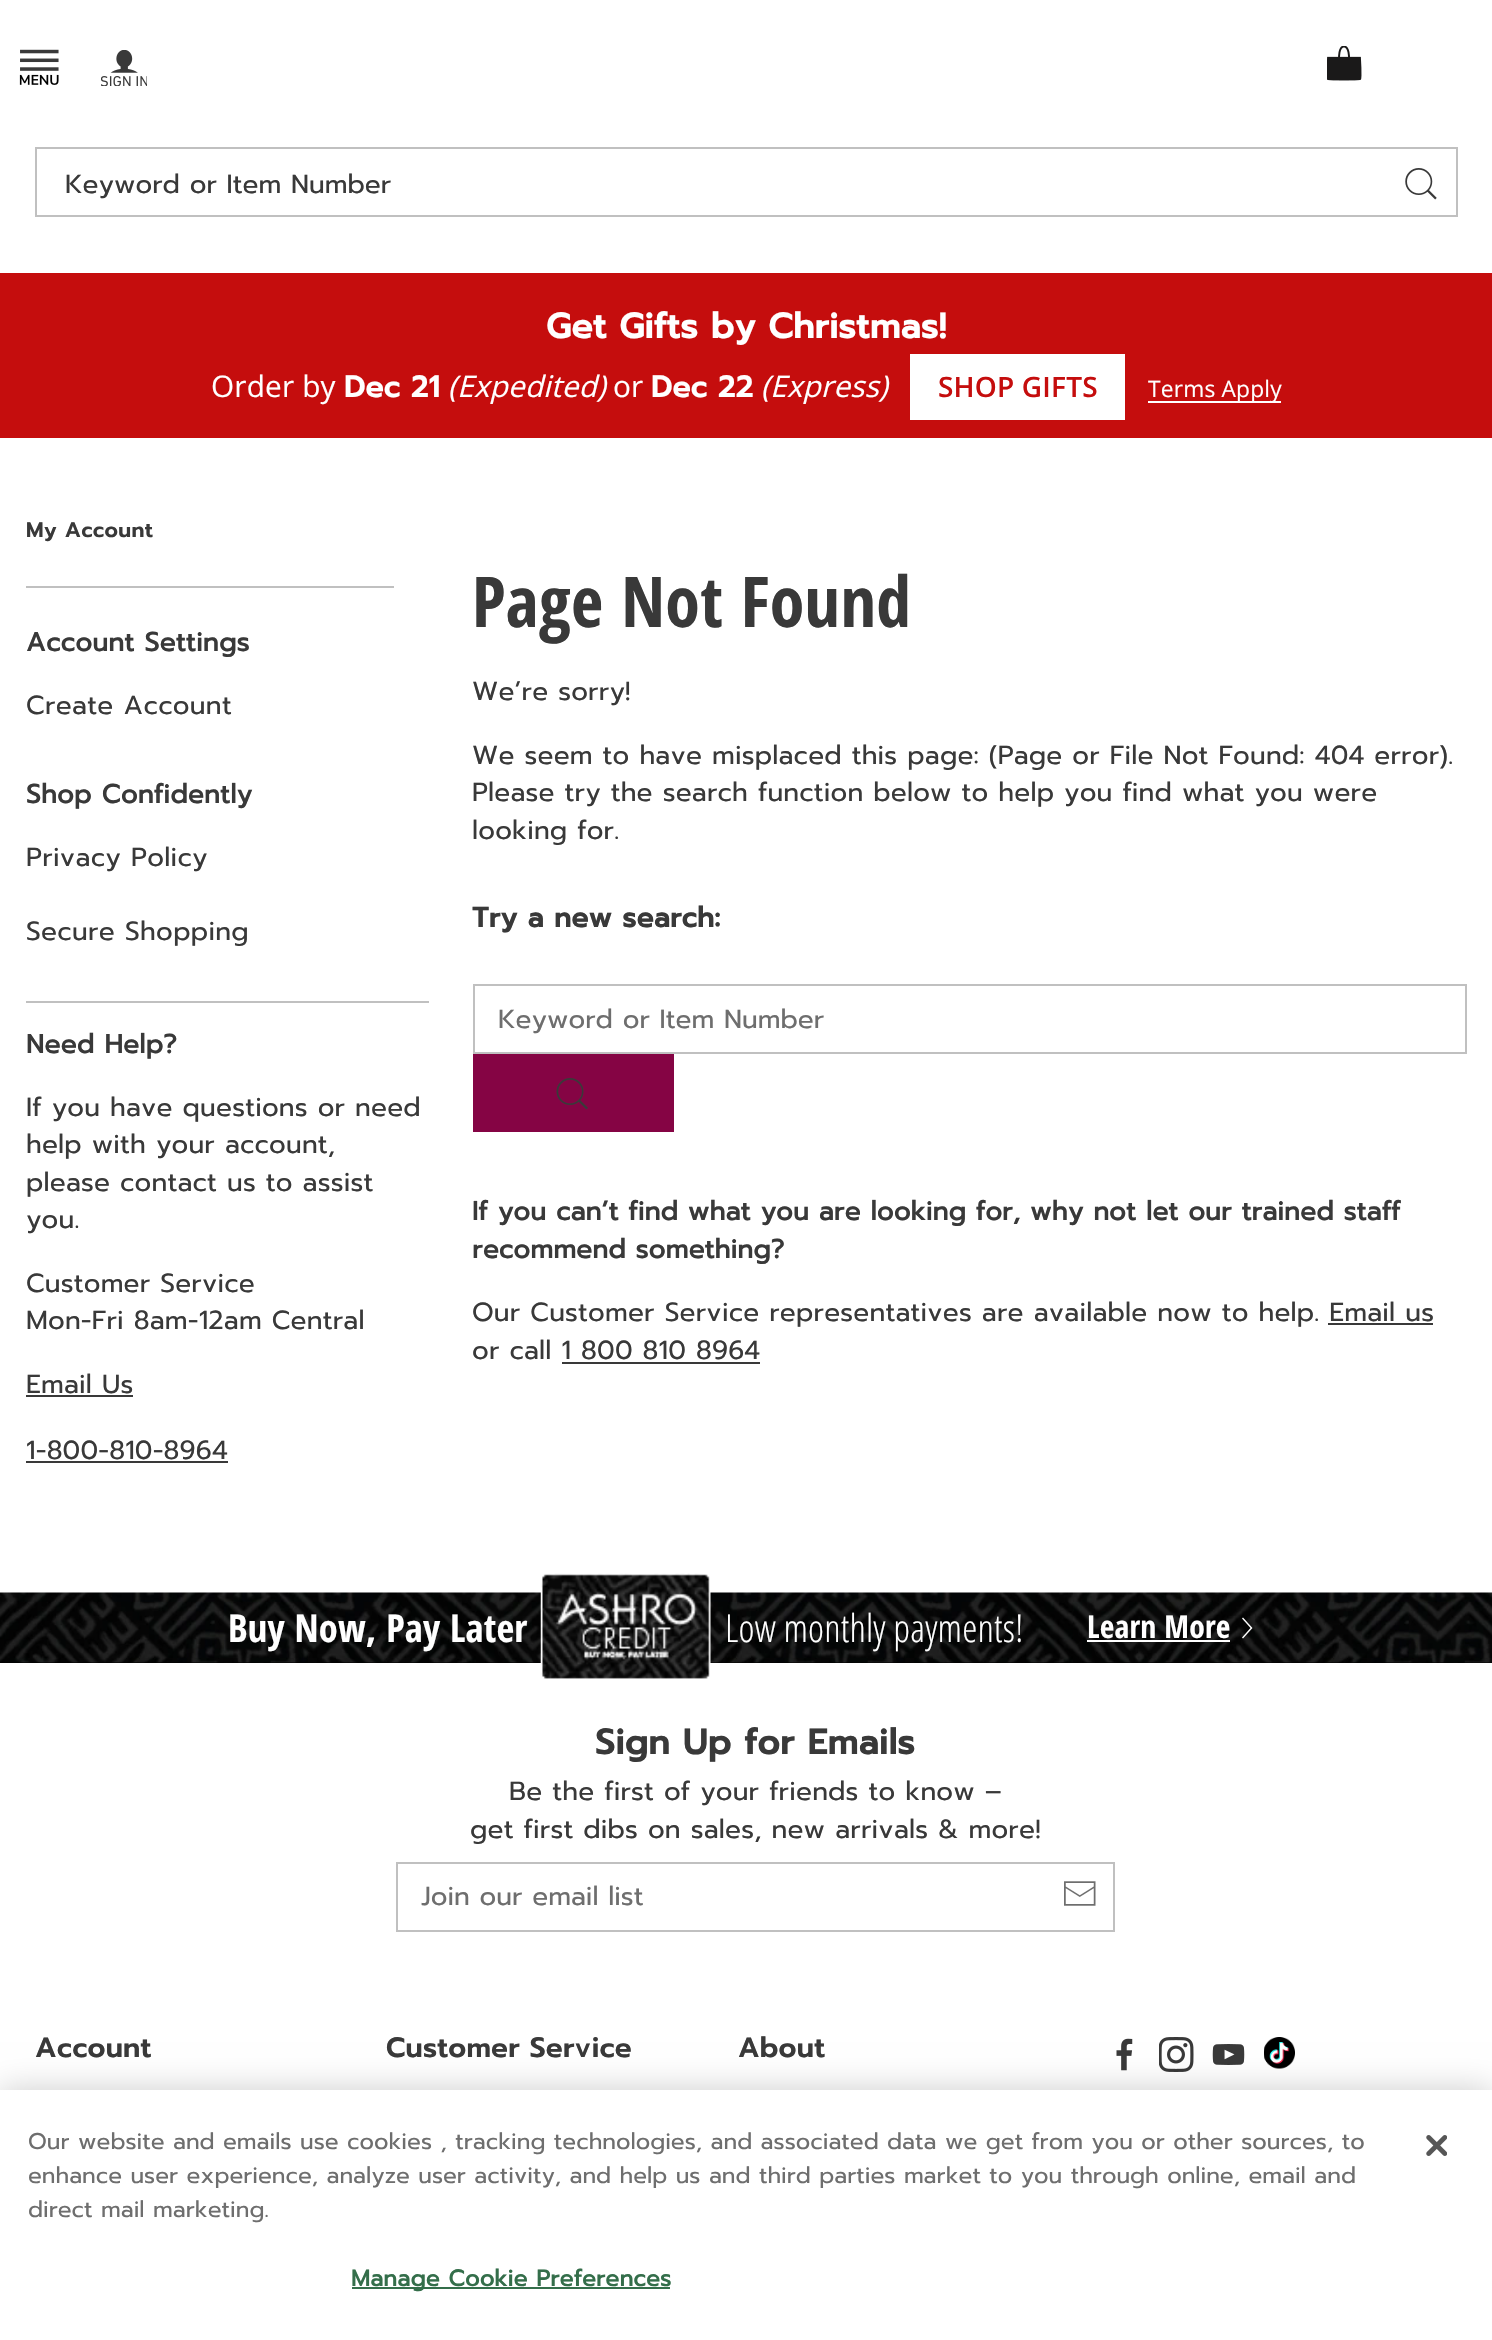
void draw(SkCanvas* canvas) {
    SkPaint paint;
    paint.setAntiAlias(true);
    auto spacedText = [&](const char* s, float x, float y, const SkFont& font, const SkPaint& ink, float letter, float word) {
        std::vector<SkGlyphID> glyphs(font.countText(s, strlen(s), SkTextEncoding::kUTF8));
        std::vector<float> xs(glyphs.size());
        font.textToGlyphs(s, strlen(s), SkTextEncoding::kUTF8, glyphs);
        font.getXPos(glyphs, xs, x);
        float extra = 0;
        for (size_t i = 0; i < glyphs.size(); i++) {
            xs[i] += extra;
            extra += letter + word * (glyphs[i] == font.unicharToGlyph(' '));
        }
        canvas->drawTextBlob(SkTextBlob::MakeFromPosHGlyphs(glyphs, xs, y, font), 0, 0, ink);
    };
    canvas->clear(0xFFFFFFFF);
    canvas->drawImageRect(SkImages::DeferredFromEncodedData(SkData::MakeFromFileName("img1.png")), SkRect::MakeXYWH(19, 49, 40, 36), SkSamplingOptions());
    canvas->drawImageRect(SkImages::DeferredFromEncodedData(SkData::MakeFromFileName("img2.png")), SkRect::MakeXYWH(101, 50, 46, 36), SkSamplingOptions());
    canvas->drawImageRect(SkImages::DeferredFromEncodedData(SkData::MakeFromFileName("img3.png")), SkRect::MakeXYWH(1327, 46, 35, 35), SkSamplingOptions());
    paint.setStyle(SkPaint::kStroke_Style);
    paint.setStrokeWidth(2);
    paint.setColor(0xFFC0C0C0);
    canvas->drawRect(SkRect::MakeXYWH(36, 148, 1421, 68), paint);
    SkFont font1(fontMgr->matchFamilyStyle("Prompt", SkFontStyle::Normal()), 26.25f);
    font1.setSubpixel(true);
    paint.setStyle(SkPaint::kFill_Style);
    paint.setColor(0xFF393939);
    canvas->drawString("Keyword or Item Number", 65, 193, font1, paint);
    canvas->drawImageRect(SkImages::DeferredFromEncodedData(SkData::MakeFromFileName("img4.png")), SkRect::MakeXYWH(1405, 168, 32, 32), SkSamplingOptions());
    paint.setColor(0xFFC50D0D);
    canvas->drawRect(SkRect::MakeXYWH(0, 273, 1492, 165), paint);
    SkFont font2(fontMgr->matchFamilyStyle("Prompt", SkFontStyle::Bold()), 35);
    font2.setSubpixel(true);
    paint.setColor(0xFFFFFFFF);
    spacedText("Get Gifts by Christmas!", 546, 338, font2, paint, 0.18f, 0);
    SkFont font3(fontMgr->matchFamilyStyle("Open Sans", SkFontStyle::Normal()), 29.75f);
    font3.setSubpixel(true);
    spacedText("Order by", 211, 397, font3, paint, 0.18f, 0);
    SkFont font4(fontMgr->matchFamilyStyle("Prompt", SkFontStyle::Bold()), 29.75f);
    font4.setSubpixel(true);
    spacedText("Dec 21", 344, 397, font4, paint, 0.18f, 0);
    SkFont font5(fontMgr->matchFamilyStyle("Open Sans", SkFontStyle::Italic()), 29.75f);
    font5.setSubpixel(true);
    spacedText("(Expedited)", 448, 397, font5, paint, 0.18f, 0);
    spacedText("or", 613, 397, font3, paint, 0.18f, 0);
    spacedText("Dec 22", 651, 397, font4, paint, 0.18f, 0);
    spacedText("(Express)", 761, 397, font5, paint, 0.18f, 0);
    canvas->drawRect(SkRect::MakeXYWH(910, 354, 215, 66), paint);
    SkFont font6(fontMgr->matchFamilyStyle("Open Sans", SkFontStyle(600, SkFontStyle::kNormal_Width, SkFontStyle::kUpright_Slant)), 28);
    font6.setSubpixel(true);
    paint.setColor(0xFFC50D0D);
    spacedText("SHOP GIFTS", 938, 397, font6, paint, 0.18f, 0);
    paint.setColor(0xFFFFFFFF);
    canvas->drawRect(SkRect::MakeXYWH(1148, 401, 133, 2), paint);
    SkFont font7(fontMgr->matchFamilyStyle("Open Sans", SkFontStyle::Normal()), 22.75f);
    font7.setSubpixel(true);
    spacedText("Terms Apply", 1148, 397, font7, paint, 0.18f, 0);
    SkFont font8(fontMgr->matchFamilyStyle("Prompt", SkFontStyle(600, SkFontStyle::kNormal_Width, SkFontStyle::kUpright_Slant)), 21);
    font8.setSubpixel(true);
    paint.setColor(0xFF393939);
    spacedText("My Account", 26, 537, font8, paint, 0.3f, 0);
    paint.setColor(0xFFC0C0C0);
    canvas->drawRect(SkRect::MakeXYWH(26, 586, 368, 2), paint);
    SkFont font9(fontMgr->matchFamilyStyle("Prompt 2", SkFontStyle::Bold()), 26.25f);
    font9.setSubpixel(true);
    paint.setColor(0xFF393939);
    spacedText("Account Settings", 26, 651, font9, paint, 0.3f, 0);
    spacedText("Create Account", 26, 714, font1, paint, 0.3f, 0);
    spacedText("Shop Confidently", 26, 803, font9, paint, 0.3f, 0);
    spacedText("Privacy Policy", 26, 866, font1, paint, 0.3f, 0);
    spacedText("Secure Shopping", 26, 940, font1, paint, 0.3f, 0);
    paint.setColor(0xFFC0C0C0);
    canvas->drawRect(SkRect::MakeXYWH(26, 1001, 403, 2), paint);
    paint.setColor(0xFF393939);
    spacedText("Need Help?", 26, 1053, font9, paint, 0.3f, 0);
    spacedText("If you have questions or need", 26, 1116, font1, paint, 0.18f, 0);
    spacedText("help with your account,", 26, 1153, font1, paint, 0.18f, 0);
    spacedText("please contact us to assist", 26, 1191, font1, paint, 0.18f, 0);
    spacedText("you.", 26, 1228, font1, paint, 0.18f, 0);
    spacedText("Customer Service", 26, 1292, font1, paint, 0.18f, 0);
    spacedText("Mon-Fri 8am-12am Central", 26, 1329, font1, paint, 0.18f, 0);
    spacedText("Email Us", 26, 1393, font1, paint, 0.18f, 0);
    canvas->drawRect(SkRect::MakeXYWH(26, 1395, 107, 2), paint);
    spacedText("1-800-810-8964", 26, 1459, font1, paint, 0.18f, 0);
    canvas->drawRect(SkRect::MakeXYWH(26, 1461, 202, 2), paint);
    SkFont font10(fontMgr->matchFamilyStyle("Open Sans Condensed", SkFontStyle::Bold()), 70);
    font10.setSubpixel(true);
    spacedText("Page Not Found", 472, 627, font10, paint, 0.3f, 0);
    spacedText("We’re sorry!", 472, 700, font1, paint, 0.18f, 0);
    spacedText("We seem to have misplaced this page: (Page or File Not Found: 404 error).", 472, 764, font1, paint, 0.18f, 0);
    spacedText("Please try the search function below to help you find what you were", 472, 801, font1, paint, 0.18f, 0);
    spacedText("looking for.", 472, 839, font1, paint, 0.18f, 0);
    SkFont font11(fontMgr->matchFamilyStyle("Prompt", SkFontStyle::Bold()), 28);
    font11.setSubpixel(true);
    spacedText("Try a new search:", 472, 927, font11, paint, 0.18f, 0);
    paint.setStyle(SkPaint::kStroke_Style);
    paint.setColor(0xFFC0C0C0);
    canvas->drawRect(SkRect::MakeXYWH(474, 985, 992, 68), paint);
    paint.setStyle(SkPaint::kFill_Style);
    paint.setColor(0xFF6E6E6E);
    canvas->drawString("Keyword or Item Number", 498, 1028, font1, paint);
    paint.setColor(0xFF850444);
    canvas->drawRect(SkRect::MakeXYWH(473, 1054, 201, 78), paint);
    canvas->drawImageRect(SkImages::DeferredFromEncodedData(SkData::MakeFromFileName("img5.png")), SkRect::MakeXYWH(556, 1078, 32, 32), SkSamplingOptions());
    paint.setColor(0xFF393939);
    spacedText("If you can’t find what you are looking for, why not let our trained staff", 472, 1220, font9, paint, 0.18f, 0);
    spacedText("recommend something?", 472, 1258, font9, paint, 0.18f, 0);
    spacedText("Our Customer Service representatives are available now to help. Email us", 472, 1321, font1, paint, 0.18f, 0);
    canvas->drawRect(SkRect::MakeXYWH(1328, 1323, 105, 2), paint);
    spacedText("or call 1 800 810 8964", 472, 1359, font1, paint, 0.18f, 0);
    canvas->drawRect(SkRect::MakeXYWH(562, 1362, 198, 2), paint);
    paint.setColor(0xFF000000);
    canvas->drawRect(SkRect::MakeXYWH(0, 1662, 1492, 1), paint);
    canvas->drawImageRect(SkImages::DeferredFromEncodedData(SkData::MakeFromFileName("img6.png")), SkRect::MakeXYWH(0, 1592, 1492, 71), SkSamplingOptions());
    SkFont font12(fontMgr->matchFamilyStyle("Open Sans Condensed", SkFontStyle::Bold()), 38.5f);
    font12.setSubpixel(true);
    paint.setColor(0xFFFFFFFF);
    spacedText("Buy Now, Pay Later", 228, 1642, font12, paint, 0.18f, 0);
    canvas->drawImageRect(SkImages::DeferredFromEncodedData(SkData::MakeFromFileName("img7.png")), SkRect::MakeXYWH(540, 1573, 171, 106), SkSamplingOptions());
    SkFont font13(fontMgr->matchFamilyStyle("Open Sans Condensed", SkFontStyle(300, SkFontStyle::kNormal_Width, SkFontStyle::kUpright_Slant)), 38.5f);
    font13.setSubpixel(true);
    spacedText("Low monthly payments!", 725, 1642, font13, paint, 0.18f, 0);
    SkFont font14(fontMgr->matchFamilyStyle("Open Sans Condensed", SkFontStyle::Bold()), 31.5f);
    font14.setSubpixel(true);
    spacedText("Learn More", 1087, 1638, font14, paint, 0.18f, 0);
    canvas->drawRect(SkRect::MakeXYWH(1087, 1640, 143, 2), paint);
    canvas->drawPath(SkPathBuilder(SkPathFillType::kEvenOdd).moveTo(1242, 1618.5f).lineTo(1243, 1617.5f).lineTo(1252.5f, 1628).lineTo(1243, 1638.5f).lineTo(1242, 1637.5f).lineTo(1250.5f, 1628).close().detach(), paint);
    paint.setColor(0xFF393939);
    spacedText("Sign Up for Emails", 595, 1754, font2, paint, 0.3f, 0);
    spacedText("Be the first of your friends to know –", 509, 1800, font1, paint, 0.18f, 0);
    spacedText("get first dibs on sales, new arrivals & more!", 470, 1838, font1, paint, 0.18f, 0);
    paint.setStyle(SkPaint::kStroke_Style);
    paint.setColor(0xFFC0C0C0);
    canvas->drawRect(SkRect::MakeXYWH(397, 1863, 717, 68), paint);
    paint.setStyle(SkPaint::kFill_Style);
    paint.setColor(0xFF6E6E6E);
    canvas->drawString("Join our email list", 421, 1905, font1, paint);
    canvas->drawImageRect(SkImages::DeferredFromEncodedData(SkData::MakeFromFileName("img8.png")), SkRect::MakeXYWH(1064, 1881, 32, 25), SkSamplingOptions());
    SkFont font15(fontMgr->matchFamilyStyle("Prompt", SkFontStyle(600, SkFontStyle::kNormal_Width, SkFontStyle::kUpright_Slant)), 28);
    font15.setSubpixel(true);
    paint.setColor(0xFF393939);
    spacedText("Account", 35, 2057, font15, paint, 0.18f, 0);
    spacedText("Customer Service", 386, 2057, font15, paint, 0.18f, 0);
    spacedText("About", 738, 2057, font15, paint, 0.18f, 0);
    canvas->drawImageRect(SkImages::DeferredFromEncodedData(SkData::MakeFromFileName("img9.png")), SkRect::MakeXYWH(1116, 2038, 17, 33), SkSamplingOptions());
    canvas->drawImageRect(SkImages::DeferredFromEncodedData(SkData::MakeFromFileName("img10.png")), SkRect::MakeXYWH(1159, 2037, 35, 35), SkSamplingOptions());
    canvas->drawImageRect(SkImages::DeferredFromEncodedData(SkData::MakeFromFileName("img11.png")), SkRect::MakeXYWH(1212, 2044, 33, 21), SkSamplingOptions());
    canvas->drawImageRect(SkImages::DeferredFromEncodedData(SkData::MakeFromFileName("img12.png")), SkRect::MakeXYWH(1264, 2037, 31, 32), SkSamplingOptions());
    paint.setColor(0x33000000);
    paint.setMaskFilter(SkMaskFilter::MakeBlur(kNormal_SkBlurStyle, 16));
    canvas->drawRect(SkRect::MakeXYWH(0, 2090, 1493, 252), paint);
    paint.setMaskFilter(nullptr);
    paint.setColor(0xFFFFFFFF);
    canvas->drawRect(SkRect::MakeXYWH(0, 2090, 1492, 250), paint);
    SkFont font16(fontMgr->matchFamilyStyle("Prompt", SkFontStyle::Normal()), 22.75f);
    font16.setSubpixel(true);
    paint.setColor(0xFF6E6E6E);
    canvas->drawString("Our website and emails use cookies , tracking technologies, and associated data we get from you or other sources, to", 28, 2149, font16, paint);
    canvas->drawString("enhance user experience, analyze user activity, and help us and third parties market to you through online, email and", 28, 2183, font16, paint);
    canvas->drawString("direct mail marketing.", 28, 2217, font16, paint);
    paint.setColor(0xFF346E4A);
    canvas->drawRect(SkRect::MakeXYWH(352, 2287, 318, 2), paint);
    SkFont font17(fontMgr->matchFamilyStyle("Prompt 2", SkFontStyle::Bold()), 22.75f);
    font17.setSubpixel(true);
    spacedText("Manage Cookie Preferences", 351, 2286, font17, paint, 0.25f, 0);
    canvas->drawImageRect(SkImages::DeferredFromEncodedData(SkData::MakeFromFileName("img13.png")), SkRect::MakeXYWH(1426, 2135, 21, 21), SkSamplingOptions());
}
